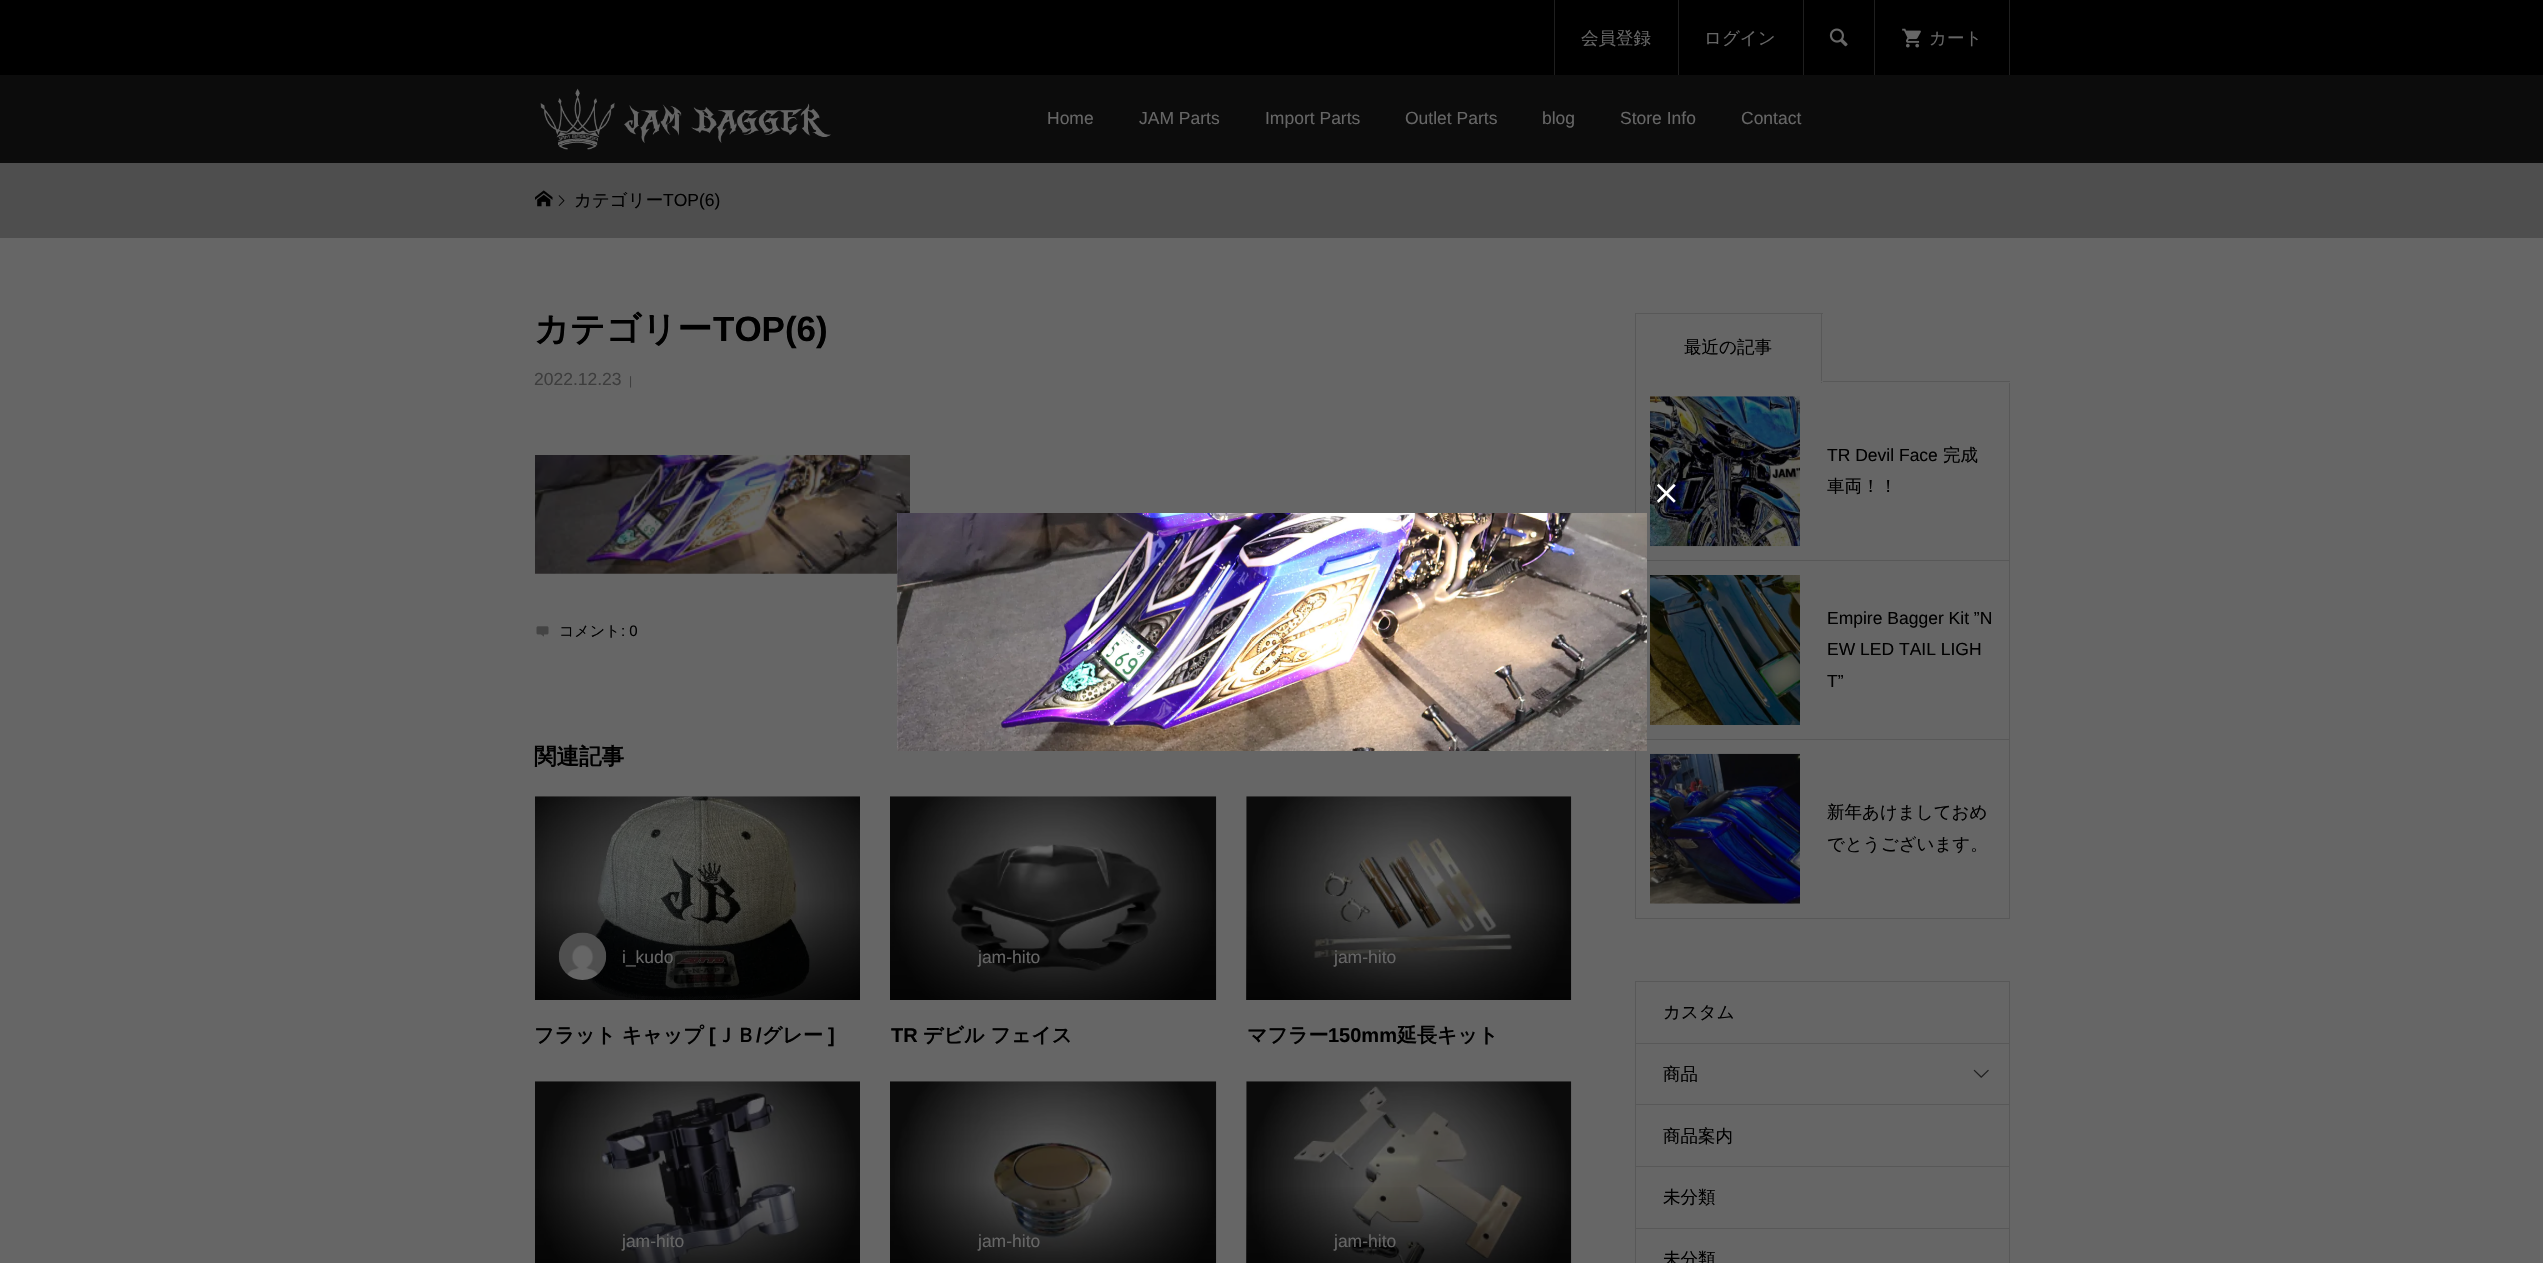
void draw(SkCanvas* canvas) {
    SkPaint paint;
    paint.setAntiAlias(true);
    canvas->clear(0xFF666666);
    paint.setColor(0xFF000000);
    canvas->drawRect(SkRect::MakeXYWH(0, 0, 2543, 75), paint);
    paint.setColor(0xFF1F1F1F);
    canvas->drawRect(SkRect::MakeXYWH(2009, 0, 1, 75), paint);
    canvas->drawRect(SkRect::MakeXYWH(1554, 0, 1, 75), paint);
    SkFont font1(fontMgr->matchFamilyStyle("WenQuanYi Zen Hei", SkFontStyle(500, SkFontStyle::kNormal_Width, SkFontStyle::kUpright_Slant)), 17.5f);
    font1.setSubpixel(true);
    paint.setColor(0xFF666666);
    canvas->drawString("会員登録", 1581, 44, font1, paint);
    paint.setColor(0xFF1F1F1F);
    canvas->drawRect(SkRect::MakeXYWH(1678, 0, 1, 75), paint);
    paint.setColor(0xFF666666);
    canvas->drawString("ログイン", 1704, 44, font1, paint);
    paint.setColor(0xFF1F1F1F);
    canvas->drawRect(SkRect::MakeXYWH(1803, 0, 1, 75), paint);
    canvas->drawImageRect(SkImages::DeferredFromEncodedData(SkData::MakeFromFileName("img1.png")), SkRect::MakeXYWH(1829, 28, 19, 19), SkSamplingOptions());
    canvas->drawRect(SkRect::MakeXYWH(1874, 0, 1, 75), paint);
    canvas->drawImageRect(SkImages::DeferredFromEncodedData(SkData::MakeFromFileName("img2.png")), SkRect::MakeXYWH(1902, 28, 19, 20), SkSamplingOptions());
    paint.setColor(0xFF666666);
    canvas->drawString("カート", 1929, 44, font1, paint);
    paint.setColor(0xFF0C0C0C);
    canvas->drawRect(SkRect::MakeXYWH(0, 75, 2543, 88), paint);
    canvas->drawImageRect(SkImages::DeferredFromEncodedData(SkData::MakeFromFileName("img3.png")), SkRect::MakeXYWH(540, 88, 291, 62), SkSamplingOptions());
    SkFont font2(fontMgr->matchFamilyStyle("Liberation Sans", SkFontStyle::Normal()), 17.5f);
    font2.setSubpixel(true);
    paint.setColor(0xFF666666);
    canvas->drawString("Home", 1047, 124, font2, paint);
    canvas->drawString("JAM Parts", 1139, 124, font2, paint);
    canvas->drawString("Import Parts", 1265, 124, font2, paint);
    canvas->drawString("Outlet Parts", 1405, 124, font2, paint);
    canvas->drawString("blog", 1542, 124, font2, paint);
    canvas->drawString("Store Info", 1620, 124, font2, paint);
    canvas->drawString("Contact", 1741, 124, font2, paint);
    paint.setColor(0xFF4E4E4E);
    canvas->drawRect(SkRect::MakeXYWH(0, 163, 2543, 75), paint);
    canvas->drawImageRect(SkImages::DeferredFromEncodedData(SkData::MakeFromFileName("img4.png")), SkRect::MakeXYWH(535, 190, 18, 17), SkSamplingOptions());
    canvas->drawImageRect(SkImages::DeferredFromEncodedData(SkData::MakeFromFileName("img5.png")), SkRect::MakeXYWH(558, 195, 7, 11), SkSamplingOptions());
    paint.setColor(0xFF000000);
    canvas->drawString("カテゴリー", 574, 206, font1, paint);
    canvas->drawString("TOP(6)", 663, 206, font2, paint);
    SkFont font3(fontMgr->matchFamilyStyle("WenQuanYi Zen Hei", SkFontStyle::Bold()), 35);
    font3.setSubpixel(true);
    canvas->drawString("カテゴリー", 534, 341, font3, paint);
    SkFont font4(fontMgr->matchFamilyStyle("Liberation Sans", SkFontStyle::Bold()), 35);
    font4.setSubpixel(true);
    canvas->drawString("TOP(6)", 713, 341, font4, paint);
    paint.setColor(0xFF3D3D3D);
    canvas->drawString("2022.12.23", 534, 385, font2, paint);
    SkFont font5(fontMgr->matchFamilyStyle("Liberation Sans", SkFontStyle::Normal()), 12);
    font5.setSubpixel(true);
    canvas->drawString("|", 629, 385, font5, paint);
    canvas->drawImageRect(SkImages::DeferredFromEncodedData(SkData::MakeFromFileName("img6.png")), SkRect::MakeXYWH(535, 455, 375, 119), SkSamplingOptions());
    canvas->drawImageRect(SkImages::DeferredFromEncodedData(SkData::MakeFromFileName("img7.png")), SkRect::MakeXYWH(536, 626, 13, 11), SkSamplingOptions());
    SkFont font6(fontMgr->matchFamilyStyle("WenQuanYi Zen Hei", SkFontStyle(500, SkFontStyle::kNormal_Width, SkFontStyle::kUpright_Slant)), 15);
    font6.setSubpixel(true);
    paint.setColor(0xFF000000);
    canvas->drawString("コメント", 559, 636, font6, paint);
    SkFont font7(fontMgr->matchFamilyStyle("Liberation Sans", SkFontStyle::Normal()), 15);
    font7.setSubpixel(true);
    canvas->drawString(": 0", 621, 636, font7, paint);
    SkFont font8(fontMgr->matchFamilyStyle("WenQuanYi Zen Hei", SkFontStyle::Bold()), 22.5f);
    font8.setSubpixel(true);
    canvas->drawString("関連記事", 534, 764, font8, paint);
    canvas->drawImageRect(SkImages::DeferredFromEncodedData(SkData::MakeFromFileName("img8.png")), SkRect::MakeXYWH(535, 796, 325, 204), SkSamplingOptions());
    canvas->drawImageRect(SkImages::DeferredFromEncodedData(SkData::MakeFromFileName("img9.png")), SkRect::MakeXYWH(558, 932, 49, 48), SkSamplingOptions());
    paint.setColor(0xFF666666);
    canvas->drawString("i_kudo", 622, 963, font2, paint);
    SkFont font9(fontMgr->matchFamilyStyle("WenQuanYi Zen Hei", SkFontStyle::Bold()), 20);
    font9.setSubpixel(true);
    paint.setColor(0xFF000000);
    canvas->drawString("フラット キャップ", 534, 1042, font9, paint);
    SkFont font10(fontMgr->matchFamilyStyle("Liberation Sans", SkFontStyle::Bold()), 20);
    font10.setSubpixel(true);
    canvas->drawString("[", 709, 1042, font10, paint);
    canvas->drawString("ＪＢ", 716, 1042, font9, paint);
    canvas->drawString("/", 756, 1042, font10, paint);
    canvas->drawString("グレー", 762, 1042, font9, paint);
    canvas->drawString("]", 828, 1042, font10, paint);
    canvas->drawImageRect(SkImages::DeferredFromEncodedData(SkData::MakeFromFileName("img10.png")), SkRect::MakeXYWH(890, 796, 327, 204), SkSamplingOptions());
    paint.setColor(0xFF666666);
    canvas->drawString("jam-hito", 978, 963, font2, paint);
    paint.setColor(0xFF000000);
    canvas->drawString("TR", 891, 1042, font10, paint);
    canvas->drawString("デビル フェイス", 923, 1042, font9, paint);
    canvas->drawImageRect(SkImages::DeferredFromEncodedData(SkData::MakeFromFileName("img11.png")), SkRect::MakeXYWH(1246, 796, 326, 204), SkSamplingOptions());
    {
        const SkColor colors[] = {0x00000000, 0xA8000000};
        const float stops[] = {0, 1};
        const SkPoint ends[] = {{1409, 899}, {1409, 1001}};
        paint.setShader(SkGradientShader::MakeLinear(ends, colors, stops, 2, SkTileMode::kClamp));
        paint.setAlpha(255);
    }
    canvas->drawRect(SkRect::MakeXYWH(1246, 903, 325, 97), paint);
    paint.setShader(nullptr);
    paint.setColor(0xFF666666);
    canvas->drawString("jam-hito", 1334, 963, font2, paint);
    paint.setColor(0xFF000000);
    canvas->drawString("マフラー", 1247, 1042, font9, paint);
    canvas->drawString("150mm", 1328, 1042, font10, paint);
    canvas->drawString("延長キット", 1397, 1042, font9, paint);
    canvas->drawImageRect(SkImages::DeferredFromEncodedData(SkData::MakeFromFileName("img12.png")), SkRect::MakeXYWH(535, 1081, 325, 182), SkSamplingOptions());
    paint.setColor(0xFF666666);
    canvas->drawString("jam-hito", 622, 1247, font2, paint);
    canvas->drawImageRect(SkImages::DeferredFromEncodedData(SkData::MakeFromFileName("img13.png")), SkRect::MakeXYWH(890, 1081, 327, 182), SkSamplingOptions());
    canvas->drawString("jam-hito", 978, 1247, font2, paint);
    canvas->drawImageRect(SkImages::DeferredFromEncodedData(SkData::MakeFromFileName("img14.png")), SkRect::MakeXYWH(1246, 1081, 326, 182), SkSamplingOptions());
    {
        const SkColor colors[] = {0x00000000, 0xA8000000};
        const float stops[] = {0, 1};
        const SkPoint ends[] = {{1409, 1183}, {1409, 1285}};
        paint.setShader(SkGradientShader::MakeLinear(ends, colors, stops, 2, SkTileMode::kClamp));
        paint.setAlpha(255);
    }
    canvas->drawRect(SkRect::MakeXYWH(1246, 1187, 325, 76), paint);
    paint.setShader(nullptr);
    paint.setColor(0xFF666666);
    canvas->drawString("jam-hito", 1334, 1247, font2, paint);
    paint.setColor(0xFF585858);
    canvas->drawRect(SkRect::MakeXYWH(1635, 313, 1, 200), paint);
    canvas->drawRect(SkRect::MakeXYWH(1636, 313, 187, 1), paint);
    canvas->drawRect(SkRect::MakeXYWH(1821, 313, 1, 70), paint);
    paint.setColor(0xFF666666);
    canvas->drawRect(SkRect::MakeXYWH(1821, 381, 2, 1), paint);
    paint.setColor(0xFF000000);
    canvas->drawString("最近の記事", 1684, 353, font1, paint);
    paint.setColor(0xFF585858);
    canvas->drawRect(SkRect::MakeXYWH(1823, 381, 187, 1), paint);
    canvas->drawRect(SkRect::MakeXYWH(2009, 383, 1, 536), paint);
    canvas->drawRect(SkRect::MakeXYWH(1647, 560, 363, 1), paint);
    canvas->drawImageRect(SkImages::DeferredFromEncodedData(SkData::MakeFromFileName("img15.png")), SkRect::MakeXYWH(1650, 396, 150, 151), SkSamplingOptions());
    paint.setColor(0xFF000000);
    canvas->drawString("TR Devil Face", 1827, 461, font2, paint);
    canvas->drawString("完成", 1943, 461, font1, paint);
    canvas->drawString("車両！！", 1827, 492, font1, paint);
    paint.setColor(0xFF585858);
    canvas->drawRect(SkRect::MakeXYWH(1647, 739, 363, 1), paint);
    canvas->drawImageRect(SkImages::DeferredFromEncodedData(SkData::MakeFromFileName("img16.png")), SkRect::MakeXYWH(1650, 575, 150, 150), SkSamplingOptions());
    paint.setColor(0xFF000000);
    canvas->drawString("Empire Bagger Kit ”N", 1827, 624, font2, paint);
    canvas->drawString("EW LED TAIL LIGH", 1827, 655, font2, paint);
    canvas->drawString("T”", 1827, 687, font2, paint);
    paint.setColor(0xFF585858);
    canvas->drawRect(SkRect::MakeXYWH(1635, 918, 375, 1), paint);
    canvas->drawRect(SkRect::MakeXYWH(1635, 751, 1, 168), paint);
    canvas->drawImageRect(SkImages::DeferredFromEncodedData(SkData::MakeFromFileName("img17.png")), SkRect::MakeXYWH(1650, 753, 150, 151), SkSamplingOptions());
    paint.setColor(0xFF000000);
    canvas->drawString("新年あけましておめ", 1827, 818, font1, paint);
    canvas->drawString("でとうございます。", 1827, 850, font1, paint);
    paint.setColor(0xFF585858);
    canvas->drawRect(SkRect::MakeXYWH(2009, 981, 1, 282), paint);
    canvas->drawRect(SkRect::MakeXYWH(1635, 981, 1, 282), paint);
    canvas->drawRect(SkRect::MakeXYWH(1636, 981, 373, 1), paint);
    paint.setColor(0xFF000000);
    canvas->drawString("カスタム", 1663, 1018, font1, paint);
    paint.setColor(0xFF585858);
    canvas->drawRect(SkRect::MakeXYWH(1636, 1043, 373, 1), paint);
    paint.setColor(0xFF000000);
    canvas->drawString("商品", 1663, 1080, font1, paint);
    canvas->drawImageRect(SkImages::DeferredFromEncodedData(SkData::MakeFromFileName("img18.png")), SkRect::MakeXYWH(1973, 1069, 16, 9), SkSamplingOptions());
    paint.setColor(0xFF585858);
    canvas->drawRect(SkRect::MakeXYWH(1636, 1104, 373, 1), paint);
    paint.setColor(0xFF000000);
    canvas->drawString("商品案内", 1663, 1142, font1, paint);
    paint.setColor(0xFF585858);
    canvas->drawRect(SkRect::MakeXYWH(1636, 1166, 373, 1), paint);
    paint.setColor(0xFF000000);
    canvas->drawString("未分類", 1663, 1203, font1, paint);
    paint.setColor(0xFF585858);
    canvas->drawRect(SkRect::MakeXYWH(1636, 1228, 373, 1), paint);
    paint.setColor(0xFF000000);
    canvas->drawString("未分類", 1663, 1265, font1, paint);
    canvas->drawImageRect(SkImages::DeferredFromEncodedData(SkData::MakeFromFileName("img19.png")), SkRect::MakeXYWH(1656, 483, 20, 20), SkSamplingOptions());
    canvas->drawImageRect(SkImages::DeferredFromEncodedData(SkData::MakeFromFileName("img20.png")), SkRect::MakeXYWH(897, 513, 750, 238), SkSamplingOptions());
}
